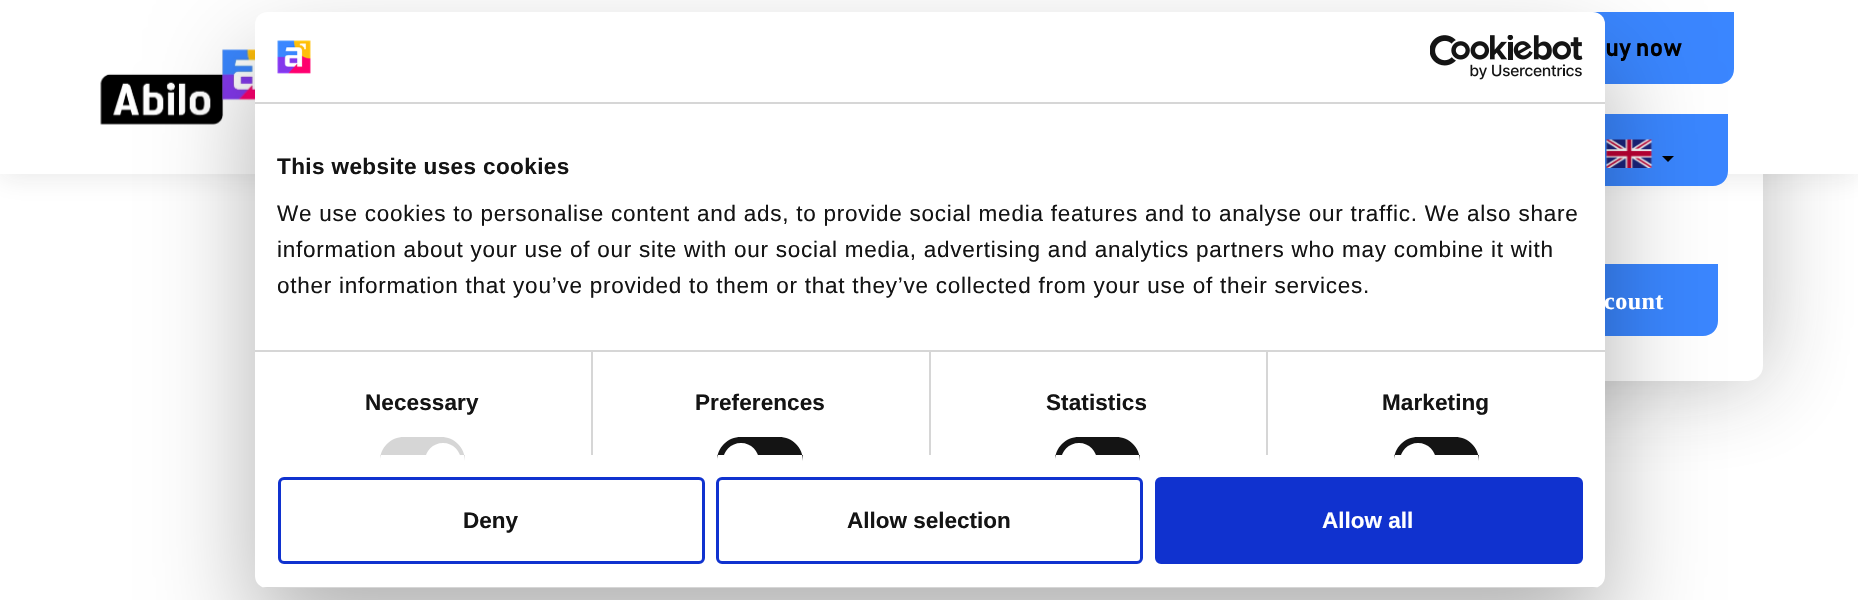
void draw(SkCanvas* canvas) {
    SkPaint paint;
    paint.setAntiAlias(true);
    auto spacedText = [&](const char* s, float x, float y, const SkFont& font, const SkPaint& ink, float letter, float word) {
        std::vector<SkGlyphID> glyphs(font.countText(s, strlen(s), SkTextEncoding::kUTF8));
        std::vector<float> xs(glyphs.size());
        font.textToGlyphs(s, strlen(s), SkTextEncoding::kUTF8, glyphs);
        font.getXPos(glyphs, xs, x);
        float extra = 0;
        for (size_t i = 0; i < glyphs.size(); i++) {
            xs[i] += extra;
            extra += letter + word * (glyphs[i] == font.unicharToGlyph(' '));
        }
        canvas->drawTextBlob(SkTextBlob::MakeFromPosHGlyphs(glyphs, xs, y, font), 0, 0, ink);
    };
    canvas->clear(0xFFFFFFFF);
    paint.setColor(0x4D222220);
    paint.setMaskFilter(SkMaskFilter::MakeBlur(kNormal_SkBlurStyle, 45));
    canvas->drawRoundRect(SkRect::MakeXYWH(953, -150, 810, 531), 15, 15, paint);
    paint.setMaskFilter(nullptr);
    paint.setColor(0xFFFFFFFF);
    canvas->drawRoundRect(SkRect::MakeXYWH(953, -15, 810, 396), 15, 15, paint);
    paint.setColor(0x1A222222);
    paint.setMaskFilter(SkMaskFilter::MakeBlur(kNormal_SkBlurStyle, 13));
    canvas->drawRect(SkRect::MakeXYWH(0, 3, 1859, 174), paint);
    paint.setMaskFilter(nullptr);
    paint.setColor(0xFFFFFFFF);
    canvas->drawRect(SkRect::MakeXYWH(0, 0, 1858, 174), paint);
    canvas->drawImageRect(SkImages::DeferredFromEncodedData(SkData::MakeFromFileName("img3.png")), SkRect::MakeXYWH(100, 49, 155, 76), SkSamplingOptions());
    paint.setColor(0xFF3A86FF);
    canvas->drawPath(SkPathBuilder().moveTo(1551, 12).lineTo(1734, 12).lineTo(1734, 69).cubicTo(1734, 77.5f, 1727.5f, 84, 1719, 84).lineTo(1536, 84).lineTo(1536, 27).cubicTo(1536, 18.5f, 1542.5f, 12, 1551, 12).close().detach(), paint);
    canvas->drawPath(SkPathBuilder().moveTo(1568, 114).lineTo(1728, 114).lineTo(1728, 171).cubicTo(1728, 179.5f, 1721.5f, 186, 1713, 186).lineTo(1553, 186).lineTo(1553, 129).cubicTo(1553, 120.5f, 1559.5f, 114, 1568, 114).close().detach(), paint);
    canvas->drawImageRect(SkImages::DeferredFromEncodedData(SkData::MakeFromFileName("img4.png")), SkRect::MakeXYWH(1606, 139, 47, 29), SkSamplingOptions());
    paint.setColor(0xFF000000);
    canvas->drawPath(SkPathBuilder().moveTo(1662, 156).lineTo(1674, 156).lineTo(1668, 162).close().detach(), paint);
    paint.setColor(0xFF3A86FF);
    canvas->drawPath(SkPathBuilder().moveTo(1460, 264).lineTo(1718, 264).lineTo(1718, 321).cubicTo(1718, 329.5f, 1711.5f, 336, 1703, 336).lineTo(1445, 336).lineTo(1445, 279).cubicTo(1445, 270.5f, 1451.5f, 264, 1460, 264).close().detach(), paint);
    paint.setColor(0x4D000000);
    paint.setMaskFilter(SkMaskFilter::MakeBlur(kNormal_SkBlurStyle, 51));
    canvas->drawRoundRect(SkRect::MakeXYWH(255, 60, 1350, 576), 12, 12, paint);
    paint.setMaskFilter(nullptr);
    paint.setColor(0xFFFFFFFF);
    canvas->drawRoundRect(SkRect::MakeXYWH(255, 12, 1350, 576), 12, 12, paint);
    paint.setColor(0xFFD6D6D6);
    canvas->drawRect(SkRect::MakeXYWH(255, 102, 1350, 2), paint);
    canvas->drawImageRect(SkImages::DeferredFromEncodedData(SkData::MakeFromFileName("img1.png")), SkRect::MakeXYWH(277, 40, 34, 34), SkSamplingOptions());
    canvas->drawImageRect(SkImages::DeferredFromEncodedData(SkData::MakeFromFileName("img2.png")), SkRect::MakeXYWH(1430, 35, 153, 45), SkSamplingOptions());
    canvas->drawRect(SkRect::MakeXYWH(591, 351, 2, 104), paint);
    canvas->drawRect(SkRect::MakeXYWH(929, 351, 2, 104), paint);
    canvas->drawRect(SkRect::MakeXYWH(1266, 351, 2, 104), paint);
    canvas->drawRect(SkRect::MakeXYWH(255, 350, 1350, 2), paint);
    SkFont font1(fontMgr->matchFamilyStyle("Liberation Sans", SkFontStyle::Bold()), 22.5f);
    font1.setSubpixel(true);
    paint.setColor(0xFF141414);
    spacedText("This website uses cookies", 277, 174, font1, paint, 0.4f, 0);
    SkFont font2(fontMgr->matchFamilyStyle("Liberation Sans", SkFontStyle::Normal()), 22.5f);
    font2.setSubpixel(true);
    spacedText("We use cookies to personalise content and ads, to provide social media features and to analyse our traffic. We also share", 277, 221, font2, paint, 0.75f, 0);
    spacedText("information about your use of our site with our social media, advertising and analytics partners who may combine it with", 277, 257, font2, paint, 0.75f, 0);
    spacedText("other information that you’ve provided to them or that they’ve collected from your use of their services.", 277, 293, font2, paint, 0.75f, 0);
    spacedText("Necessary", 365, 410, font1, paint, 0.1f, 0);
    paint.setColor(0xFFD6D6D6);
    canvas->drawPath(SkPathBuilder().moveTo(404, 437).lineTo(441, 437).cubicTo(454.5f, 437, 465, 447.5f, 465, 461).lineTo(465, 455).lineTo(380, 455).lineTo(380, 461).cubicTo(380, 447.5f, 390.5f, 437, 404, 437).close().detach(), paint);
    paint.setColor(0xFFFFFFFF);
    canvas->drawPath(SkPathBuilder().moveTo(443, 443).cubicTo(453, 443, 461, 451, 461, 461).lineTo(461, 455).lineTo(425, 455).lineTo(425, 461).cubicTo(425, 451, 433, 443, 443, 443).close().detach(), paint);
    paint.setColor(0xFF141414);
    spacedText("Preferences", 695, 410, font1, paint, 0.1f, 0);
    canvas->drawPath(SkPathBuilder().moveTo(741, 437).lineTo(779, 437).cubicTo(792.5f, 437, 803, 447.5f, 803, 461).lineTo(803, 455).lineTo(717, 455).lineTo(717, 461).cubicTo(717, 447.5f, 727.5f, 437, 741, 437).close().detach(), paint);
    paint.setColor(0xFFFFFFFF);
    canvas->drawPath(SkPathBuilder().moveTo(741, 443).cubicTo(751, 443, 759, 451, 759, 461).lineTo(759, 455).lineTo(723, 455).lineTo(723, 461).cubicTo(723, 451, 731, 443, 741, 443).close().detach(), paint);
    paint.setColor(0xFF141414);
    spacedText("Statistics", 1046, 410, font1, paint, 0.1f, 0);
    canvas->drawPath(SkPathBuilder().moveTo(1079, 437).lineTo(1116, 437).cubicTo(1129.5f, 437, 1140, 447.5f, 1140, 461).lineTo(1140, 455).lineTo(1055, 455).lineTo(1055, 461).cubicTo(1055, 447.5f, 1065.5f, 437, 1079, 437).close().detach(), paint);
    paint.setColor(0xFFFFFFFF);
    canvas->drawPath(SkPathBuilder().moveTo(1079, 443).cubicTo(1089, 443, 1097, 451, 1097, 461).lineTo(1097, 455).lineTo(1061, 455).lineTo(1061, 461).cubicTo(1061, 451, 1069, 443, 1079, 443).close().detach(), paint);
    paint.setColor(0xFF141414);
    spacedText("Marketing", 1382, 410, font1, paint, 0.1f, 0);
    canvas->drawPath(SkPathBuilder().moveTo(1418, 437).lineTo(1455, 437).cubicTo(1468.5f, 437, 1479, 447.5f, 1479, 461).lineTo(1479, 455).lineTo(1394, 455).lineTo(1394, 461).cubicTo(1394, 447.5f, 1404.5f, 437, 1418, 437).close().detach(), paint);
    paint.setColor(0xFFFFFFFF);
    canvas->drawPath(SkPathBuilder().moveTo(1418, 443).cubicTo(1428, 443, 1436, 451, 1436, 461).lineTo(1436, 455).lineTo(1400, 455).lineTo(1400, 461).cubicTo(1400, 451, 1408, 443, 1418, 443).close().detach(), paint);
    canvas->save();
    canvas->clipPath(SkPathBuilder().moveTo(267, 12).lineTo(1593, 12).cubicTo(1599.5f, 12, 1605, 17.5f, 1605, 24).lineTo(1605, 576).cubicTo(1605, 582.5f, 1599.5f, 588, 1593, 588).lineTo(267, 588).cubicTo(260.5f, 588, 255, 582.5f, 255, 576).lineTo(255, 24).cubicTo(255, 17.5f, 260.5f, 12, 267, 12).close().detach(), true);
    paint.setColor(0xFFD6D6D6);
    canvas->drawRect(SkRect::MakeXYWH(255, 587, 1350, 1), paint);
    canvas->restore();
    paint.setStyle(SkPaint::kStroke_Style);
    paint.setStrokeWidth(3);
    paint.setColor(0xFF1032CF);
    canvas->drawRoundRect(SkRect::MakeXYWH(279.5f, 478.5f, 424, 84), 4.5f, 4.5f, paint);
    paint.setStyle(SkPaint::kFill_Style);
    paint.setColor(0xFF141414);
    canvas->drawString("Deny", 463, 528, font1, paint);
    paint.setStyle(SkPaint::kStroke_Style);
    paint.setColor(0xFF1032CF);
    canvas->drawRoundRect(SkRect::MakeXYWH(717.5f, 478.5f, 424, 84), 4.5f, 4.5f, paint);
    paint.setStyle(SkPaint::kFill_Style);
    paint.setColor(0xFF141414);
    canvas->drawString("Allow selection", 847, 528, font1, paint);
    paint.setColor(0xFF1032CF);
    canvas->drawRoundRect(SkRect::MakeXYWH(1156.5f, 478.5f, 425, 84), 4.5f, 4.5f, paint);
    paint.setStyle(SkPaint::kStroke_Style);
    canvas->drawRoundRect(SkRect::MakeXYWH(1156.5f, 478.5f, 425, 84), 4.5f, 4.5f, paint);
    paint.setStyle(SkPaint::kFill_Style);
    paint.setColor(0xFFFFFFFF);
    canvas->drawString("Allow all", 1322, 528, font1, paint);
    SkFont font3(fontMgr->matchFamilyStyle("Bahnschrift", SkFontStyle::Bold()), 24);
    font3.setSubpixel(true);
    paint.setColor(0xFF000000);
    spacedText("uy now", 1605, 56, font3, paint, 0.5f, 0);
    SkFont font4(fontMgr->matchFamilyStyle("Liberation Serif", SkFontStyle::Bold()), 24);
    font4.setSubpixel(true);
    paint.setColor(0xFFFFFFFF);
    spacedText("count", 1604, 309, font4, paint, 0.5f, 0);
}
